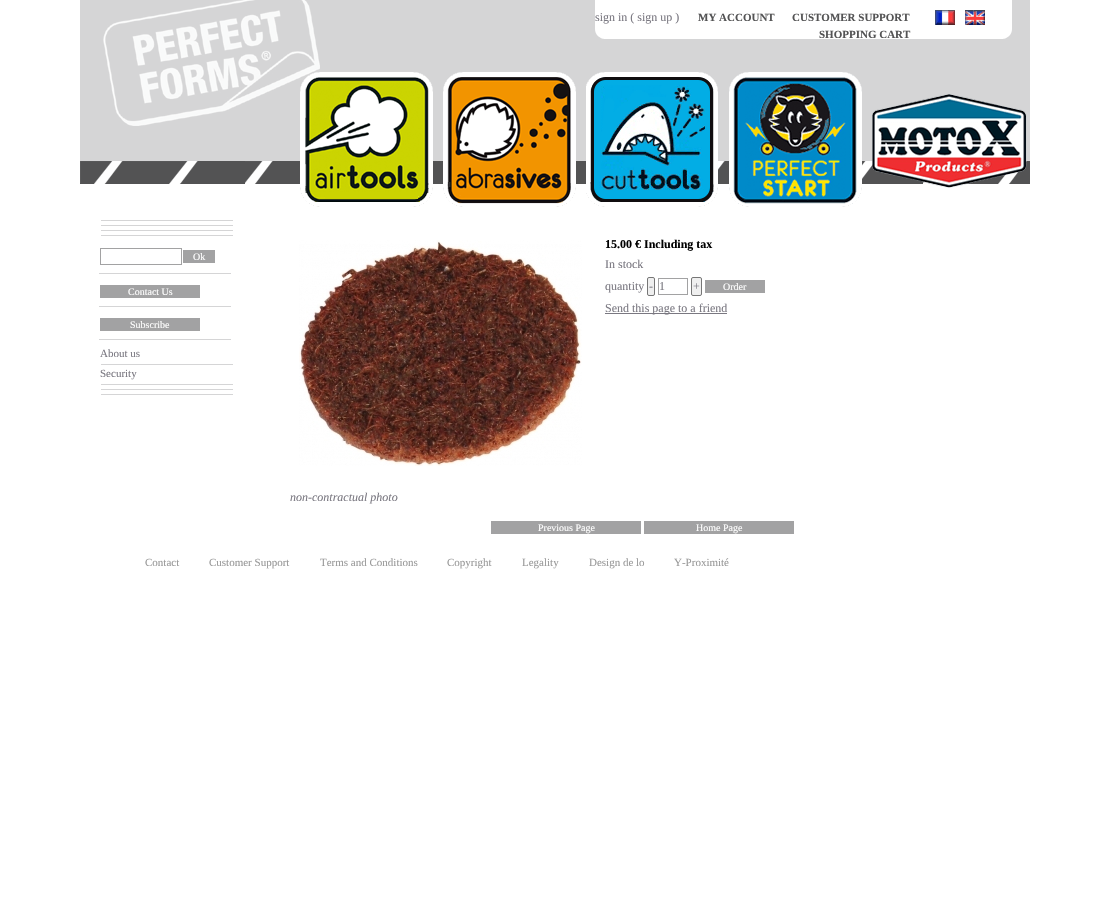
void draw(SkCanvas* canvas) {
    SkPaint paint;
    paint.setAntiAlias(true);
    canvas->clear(0xFFFFFFFF);
    canvas->drawImageRect(SkImages::DeferredFromEncodedData(SkData::MakeFromFileName("img1.png")), SkRect::MakeXYWH(80, 0, 950, 72), SkSamplingOptions());
    SkFont font1(fontMgr->matchFamilyStyle("Liberation Serif", SkFontStyle::Normal()), 12);
    font1.setSubpixel(true);
    paint.setColor(0xFF7A7881);
    canvas->drawString("sign in ( sign up )", 595, 21, font1, paint);
    SkFont font2(fontMgr->matchFamilyStyle("Liberation Serif", SkFontStyle::Bold()), 11);
    font2.setSubpixel(true);
    paint.setColor(0xFF535354);
    canvas->drawString("MY ACCOUNT", 698, 21, font2, paint);
    canvas->drawString("CUSTOMER SUPPORT", 792, 21, font2, paint);
    canvas->drawString("SHOPPING CART", 819, 38, font2, paint);
    canvas->drawImageRect(SkImages::DeferredFromEncodedData(SkData::MakeFromFileName("img2.png")), SkRect::MakeXYWH(935, 10, 20, 15), SkSamplingOptions());
    canvas->drawImageRect(SkImages::DeferredFromEncodedData(SkData::MakeFromFileName("img3.png")), SkRect::MakeXYWH(965, 10, 20, 15), SkSamplingOptions());
    canvas->drawImageRect(SkImages::DeferredFromEncodedData(SkData::MakeFromFileName("img4.png")), SkRect::MakeXYWH(80, 72, 950, 112), SkSamplingOptions());
    canvas->drawImageRect(SkImages::DeferredFromEncodedData(SkData::MakeFromFileName("img5.png")), SkRect::MakeXYWH(300, 72, 133, 135), SkSamplingOptions());
    canvas->drawImageRect(SkImages::DeferredFromEncodedData(SkData::MakeFromFileName("img6.png")), SkRect::MakeXYWH(443, 72, 133, 135), SkSamplingOptions());
    canvas->drawImageRect(SkImages::DeferredFromEncodedData(SkData::MakeFromFileName("img7.png")), SkRect::MakeXYWH(586, 72, 132, 135), SkSamplingOptions());
    canvas->drawImageRect(SkImages::DeferredFromEncodedData(SkData::MakeFromFileName("img8.png")), SkRect::MakeXYWH(729, 72, 133, 135), SkSamplingOptions());
    canvas->drawImageRect(SkImages::DeferredFromEncodedData(SkData::MakeFromFileName("img9.png")), SkRect::MakeXYWH(872, 94, 155, 94), SkSamplingOptions());
    paint.setColor(0xFFD5D5D6);
    canvas->drawRect(SkRect::MakeXYWH(101, 220, 132, 1), paint);
    canvas->drawRect(SkRect::MakeXYWH(101, 225, 132, 1), paint);
    canvas->drawRect(SkRect::MakeXYWH(101, 230, 132, 1), paint);
    canvas->drawRect(SkRect::MakeXYWH(101, 235, 132, 1), paint);
    canvas->drawRect(SkRect::MakeXYWH(99, 273, 132, 1), paint);
    paint.setStyle(SkPaint::kStroke_Style);
    paint.setStrokeWidth(1);
    paint.setColor(0xFFA2A2A3);
    canvas->drawRect(SkRect::MakeXYWH(100.5f, 248.5f, 81, 16), paint);
    paint.setStyle(SkPaint::kFill_Style);
    canvas->drawRect(SkRect::MakeXYWH(183, 250, 32, 13), paint);
    SkFont font3(fontMgr->matchFamilyStyle("Liberation Serif", SkFontStyle::Normal()), 10);
    font3.setSubpixel(true);
    paint.setColor(0xFFFFFFFF);
    canvas->drawString("Ok", 193, 260, font3, paint);
    paint.setColor(0xFFD5D5D6);
    canvas->drawRect(SkRect::MakeXYWH(99, 306, 132, 1), paint);
    paint.setColor(0xFFA2A2A3);
    canvas->drawRect(SkRect::MakeXYWH(100, 285, 100, 13), paint);
    paint.setColor(0xFFFFFFFF);
    canvas->drawString("Contact Us", 128, 295, font3, paint);
    paint.setColor(0xFFD5D5D6);
    canvas->drawRect(SkRect::MakeXYWH(99, 339, 132, 1), paint);
    paint.setColor(0xFFA2A2A3);
    canvas->drawRect(SkRect::MakeXYWH(100, 318, 100, 13), paint);
    paint.setColor(0xFFFFFFFF);
    canvas->drawString("Subscribe", 130, 328, font3, paint);
    paint.setColor(0xFFD5D5D6);
    canvas->drawRect(SkRect::MakeXYWH(101, 364, 132, 1), paint);
    SkFont font4(fontMgr->matchFamilyStyle("Liberation Serif", SkFontStyle::Normal()), 11);
    font4.setSubpixel(true);
    paint.setColor(0xFF7A7881);
    canvas->drawString("About us", 100, 357, font4, paint);
    paint.setColor(0xFFD5D5D6);
    canvas->drawRect(SkRect::MakeXYWH(101, 384, 132, 1), paint);
    paint.setColor(0xFF7A7881);
    canvas->drawString("Security", 100, 377, font4, paint);
    paint.setColor(0xFFD5D5D6);
    canvas->drawRect(SkRect::MakeXYWH(101, 389, 132, 1), paint);
    canvas->drawRect(SkRect::MakeXYWH(101, 394, 132, 1), paint);
    SkFont font5(fontMgr->matchFamilyStyle("Liberation Serif", SkFontStyle::Bold()), 12);
    font5.setSubpixel(true);
    paint.setColor(0xFF000000);
    canvas->drawString("15.00 € Including tax", 605, 248, font5, paint);
    paint.setColor(0xFF7A7881);
    canvas->drawString("In stock", 605, 268, font1, paint);
    canvas->drawString("quantity", 605, 290, font1, paint);
    paint.setColor(0xFFEFEFEF);
    canvas->drawRoundRect(SkRect::MakeXYWH(647.5f, 277.5f, 7, 18), 1.5f, 1.5f, paint);
    paint.setStyle(SkPaint::kStroke_Style);
    paint.setColor(0xFF767676);
    canvas->drawRoundRect(SkRect::MakeXYWH(647.5f, 277.5f, 7, 18), 1.5f, 1.5f, paint);
    paint.setStyle(SkPaint::kFill_Style);
    paint.setColor(0xFF7A7881);
    canvas->drawString("-", 649, 290, font1, paint);
    paint.setStyle(SkPaint::kStroke_Style);
    paint.setColor(0xFFA2A2A3);
    canvas->drawRect(SkRect::MakeXYWH(658.5f, 278.5f, 29, 16), paint);
    paint.setStyle(SkPaint::kFill_Style);
    paint.setColor(0xFF7A7881);
    canvas->drawString("1", 659, 290, font1, paint);
    paint.setColor(0xFFEFEFEF);
    canvas->drawRoundRect(SkRect::MakeXYWH(691.5f, 277.5f, 10, 18), 1.5f, 1.5f, paint);
    paint.setStyle(SkPaint::kStroke_Style);
    paint.setColor(0xFF767676);
    canvas->drawRoundRect(SkRect::MakeXYWH(691.5f, 277.5f, 10, 18), 1.5f, 1.5f, paint);
    paint.setStyle(SkPaint::kFill_Style);
    paint.setColor(0xFF7A7881);
    canvas->drawString("+", 693, 290, font1, paint);
    paint.setColor(0xFFA2A2A3);
    canvas->drawRect(SkRect::MakeXYWH(705, 280, 60, 13), paint);
    paint.setColor(0xFFFFFFFF);
    canvas->drawString("Order", 723, 290, font3, paint);
    paint.setColor(0xFF7A7881);
    canvas->drawRect(SkRect::MakeXYWH(605, 313, 122, 1), paint);
    canvas->drawString("Send this page to a friend", 605, 312, font1, paint);
    canvas->drawImageRect(SkImages::DeferredFromEncodedData(SkData::MakeFromFileName("img10.png")), SkRect::MakeXYWH(299, 240, 283, 226), SkSamplingOptions());
    SkFont font6(fontMgr->matchFamilyStyle("Liberation Serif", SkFontStyle::Italic()), 12);
    font6.setSubpixel(true);
    canvas->drawString("non-contractual photo", 290, 501, font6, paint);
    paint.setColor(0xFFA2A2A3);
    canvas->drawRect(SkRect::MakeXYWH(491, 521, 150, 13), paint);
    paint.setColor(0xFFFFFFFF);
    canvas->drawString("Previous Page", 538, 531, font3, paint);
    paint.setColor(0xFFA2A2A3);
    canvas->drawRect(SkRect::MakeXYWH(644, 521, 150, 13), paint);
    paint.setColor(0xFFFFFFFF);
    canvas->drawString("Home Page", 696, 531, font3, paint);
    paint.setColor(0xFF999999);
    canvas->drawString("Contact", 145, 566, font4, paint);
    canvas->drawString("Customer Support", 209, 566, font4, paint);
    canvas->drawString("Terms and Conditions", 320, 566, font4, paint);
    canvas->drawString("Copyright", 447, 566, font4, paint);
    canvas->drawString("Legality", 522, 566, font4, paint);
    canvas->drawString("Design de lo", 589, 566, font4, paint);
    canvas->drawString("Y-Proximité", 674, 566, font4, paint);
}
